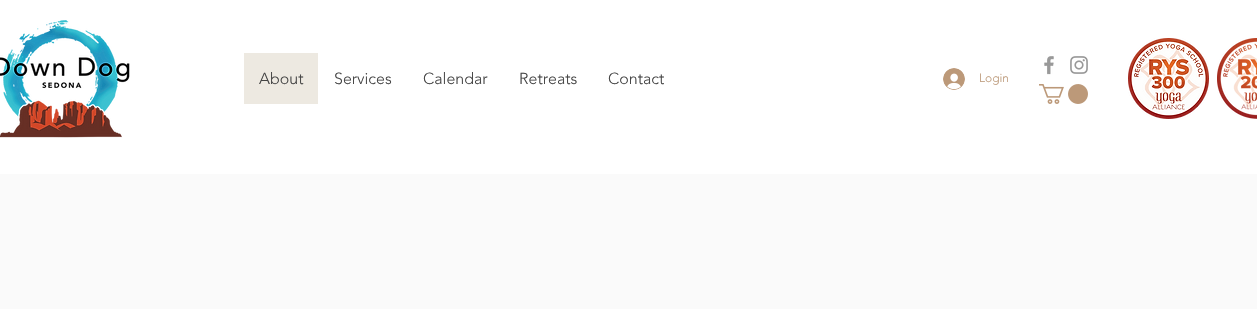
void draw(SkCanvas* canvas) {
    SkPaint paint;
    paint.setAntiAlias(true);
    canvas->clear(0xFFFAFAFA);
    paint.setColor(0xFFFFFFFF);
    canvas->drawRect(SkRect::MakeXYWH(0, 0, 1257, 174), paint);
    canvas->drawImageRect(SkImages::DeferredFromEncodedData(SkData::MakeFromFileName("img1.png")), SkRect::MakeXYWH(0, 20, 130, 118), SkSamplingOptions());
    canvas->drawImageRect(SkImages::DeferredFromEncodedData(SkData::MakeFromFileName("img2.png")), SkRect::MakeXYWH(1044, 56, 10, 19), SkSamplingOptions());
    canvas->drawImageRect(SkImages::DeferredFromEncodedData(SkData::MakeFromFileName("img3.png")), SkRect::MakeXYWH(1070, 56, 18, 18), SkSamplingOptions());
    canvas->drawImageRect(SkImages::DeferredFromEncodedData(SkData::MakeFromFileName("img4.png")), SkRect::MakeXYWH(1128, 38, 81, 81), SkSamplingOptions());
    canvas->drawImageRect(SkImages::DeferredFromEncodedData(SkData::MakeFromFileName("img5.png")), SkRect::MakeXYWH(1217, 38, 40, 81), SkSamplingOptions());
    paint.setColor(0xFFEDE9E1);
    canvas->drawRect(SkRect::MakeXYWH(244, 53, 74, 51), paint);
    SkFont font1(fontMgr->matchFamilyStyle("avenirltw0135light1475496", SkFontStyle(300, SkFontStyle::kNormal_Width, SkFontStyle::kUpright_Slant)), 16);
    font1.setSubpixel(true);
    paint.setColor(0xFF444444);
    canvas->drawString("About", 259, 84, font1, paint);
    canvas->drawString("Services", 334, 84, font1, paint);
    canvas->drawString("Calendar", 423, 84, font1, paint);
    canvas->drawString("Retreats", 519, 84, font1, paint);
    canvas->drawString("Contact", 608, 84, font1, paint);
    canvas->drawImageRect(SkImages::DeferredFromEncodedData(SkData::MakeFromFileName("img6.png")), SkRect::MakeXYWH(943, 68, 22, 22), SkSamplingOptions());
    SkFont font2(fontMgr->matchFamilyStyle("avenirltw0135light1475496", SkFontStyle(300, SkFontStyle::kNormal_Width, SkFontStyle::kUpright_Slant)), 12);
    font2.setSubpixel(true);
    paint.setColor(0xFFBC9979);
    canvas->drawString("Login", 979, 82, font2, paint);
    canvas->drawImageRect(SkImages::DeferredFromEncodedData(SkData::MakeFromFileName("img7.png")), SkRect::MakeXYWH(1039, 84, 49, 20), SkSamplingOptions());
}
